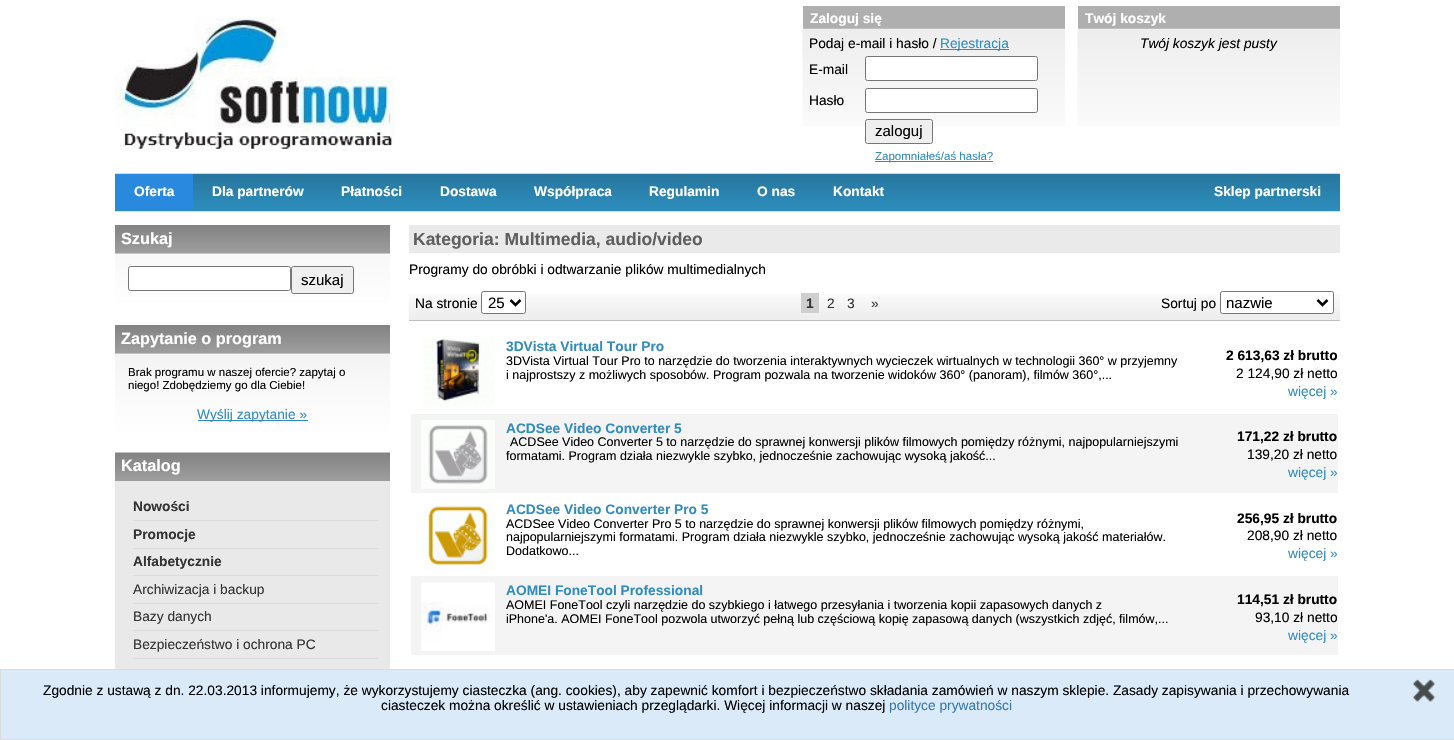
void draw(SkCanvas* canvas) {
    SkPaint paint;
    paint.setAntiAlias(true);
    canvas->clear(0xFFFFFFFF);
    canvas->drawImageRect(SkImages::DeferredFromEncodedData(SkData::MakeFromFileName("img1.png")), SkRect::MakeXYWH(115, 16, 280, 135), SkSamplingOptions());
    paint.setColor(0xFFAFAFAF);
    canvas->drawRect(SkRect::MakeXYWH(803, 6, 262, 23), paint);
    SkFont font1(fontMgr->matchFamilyStyle("Liberation Sans", SkFontStyle::Bold()), 13.75f);
    font1.setSubpixel(true);
    paint.setColor(0xFFFFFFFF);
    canvas->drawString("Zaloguj się", 810, 23, font1, paint);
    canvas->drawImageRect(SkImages::DeferredFromEncodedData(SkData::MakeFromFileName("img2.png")), SkRect::MakeXYWH(802, 28, 263, 98), SkSamplingOptions());
    SkFont font2(fontMgr->matchFamilyStyle("Liberation Sans", SkFontStyle::Normal()), 13.75f);
    font2.setSubpixel(true);
    paint.setColor(0xFF000000);
    canvas->drawString("Podaj e-mail i hasło /", 809, 48, font2, paint);
    paint.setColor(0xFF328DBD);
    canvas->drawRect(SkRect::MakeXYWH(940, 49, 69, 1), paint);
    canvas->drawString("Rejestracja", 940, 48, font2, paint);
    paint.setColor(0xFF000000);
    canvas->drawString("E-mail", 809, 74, font2, paint);
    paint.setColor(0xFFFFFFFF);
    canvas->drawRoundRect(SkRect::MakeXYWH(865.5f, 56.5f, 172, 24), 2, 2, paint);
    paint.setStyle(SkPaint::kStroke_Style);
    paint.setStrokeWidth(1);
    paint.setColor(0xFF767676);
    canvas->drawRoundRect(SkRect::MakeXYWH(865.5f, 56.5f, 172, 24), 2, 2, paint);
    paint.setStyle(SkPaint::kFill_Style);
    paint.setColor(0xFF000000);
    canvas->drawString("Hasło", 809, 105, font2, paint);
    paint.setColor(0xFFFFFFFF);
    canvas->drawRoundRect(SkRect::MakeXYWH(865.5f, 88.5f, 172, 24), 2, 2, paint);
    paint.setStyle(SkPaint::kStroke_Style);
    paint.setColor(0xFF767676);
    canvas->drawRoundRect(SkRect::MakeXYWH(865.5f, 88.5f, 172, 24), 2, 2, paint);
    paint.setStyle(SkPaint::kFill_Style);
    paint.setColor(0xFFEFEFEF);
    canvas->drawRoundRect(SkRect::MakeXYWH(865.5f, 119.5f, 67, 24), 2, 2, paint);
    paint.setStyle(SkPaint::kStroke_Style);
    paint.setColor(0xFF767676);
    canvas->drawRoundRect(SkRect::MakeXYWH(865.5f, 119.5f, 67, 24), 2, 2, paint);
    SkFont font3(fontMgr->matchFamilyStyle("Liberation Sans", SkFontStyle::Normal()), 15);
    font3.setSubpixel(true);
    paint.setStyle(SkPaint::kFill_Style);
    paint.setColor(0xFF000000);
    canvas->drawString("zaloguj", 875, 136, font3, paint);
    paint.setColor(0xFF328DBD);
    canvas->drawRect(SkRect::MakeXYWH(875, 161, 118, 1), paint);
    SkFont font4(fontMgr->matchFamilyStyle("Liberation Sans", SkFontStyle::Normal()), 11.5f);
    font4.setSubpixel(true);
    canvas->drawString("Zapomniałeś/aś hasła?", 875, 160, font4, paint);
    paint.setColor(0xFFAFAFAF);
    canvas->drawRect(SkRect::MakeXYWH(1078, 6, 262, 23), paint);
    paint.setColor(0xFFFFFFFF);
    canvas->drawString("Twój koszyk", 1085, 23, font1, paint);
    canvas->drawImageRect(SkImages::DeferredFromEncodedData(SkData::MakeFromFileName("img2.png")), SkRect::MakeXYWH(1077, 28, 263, 98), SkSamplingOptions());
    SkFont font5(fontMgr->matchFamilyStyle("Liberation Sans", SkFontStyle::Italic()), 13.75f);
    font5.setSubpixel(true);
    paint.setColor(0xFF000000);
    canvas->drawString("Twój koszyk jest pusty", 1140, 48, font5, paint);
    canvas->drawImageRect(SkImages::DeferredFromEncodedData(SkData::MakeFromFileName("img3.png")), SkRect::MakeXYWH(115, 173, 1225, 39), SkSamplingOptions());
    paint.setColor(0xFF2989DF);
    canvas->drawRect(SkRect::MakeXYWH(115, 174, 78, 35), paint);
    paint.setColor(0xFFFFFFFF);
    canvas->drawString("Oferta", 134, 196, font1, paint);
    canvas->drawString("Dla partnerów", 212, 196, font1, paint);
    canvas->drawString("Płatności", 341, 196, font1, paint);
    canvas->drawString("Dostawa", 440, 196, font1, paint);
    canvas->drawString("Współpraca", 534, 196, font1, paint);
    canvas->drawString("Regulamin", 649, 196, font1, paint);
    canvas->drawString("O nas", 757, 196, font1, paint);
    canvas->drawString("Kontakt", 833, 196, font1, paint);
    canvas->drawString("Sklep partnerski", 1214, 196, font1, paint);
    canvas->drawImageRect(SkImages::DeferredFromEncodedData(SkData::MakeFromFileName("img4.png")), SkRect::MakeXYWH(115, 225, 275, 29), SkSamplingOptions());
    SkFont font6(fontMgr->matchFamilyStyle("Liberation Sans", SkFontStyle::Bold()), 16.25f);
    font6.setSubpixel(true);
    canvas->drawString("Szukaj", 121, 244, font6, paint);
    canvas->drawImageRect(SkImages::DeferredFromEncodedData(SkData::MakeFromFileName("img5.png")), SkRect::MakeXYWH(115, 253, 275, 53), SkSamplingOptions());
    canvas->drawRoundRect(SkRect::MakeXYWH(128.5f, 266.5f, 162, 24), 2, 2, paint);
    paint.setStyle(SkPaint::kStroke_Style);
    paint.setColor(0xFF767676);
    canvas->drawRoundRect(SkRect::MakeXYWH(128.5f, 266.5f, 162, 24), 2, 2, paint);
    paint.setStyle(SkPaint::kFill_Style);
    paint.setColor(0xFFEFEFEF);
    canvas->drawRoundRect(SkRect::MakeXYWH(291.5f, 266.5f, 62, 27), 2, 2, paint);
    paint.setStyle(SkPaint::kStroke_Style);
    paint.setColor(0xFF767676);
    canvas->drawRoundRect(SkRect::MakeXYWH(291.5f, 266.5f, 62, 27), 2, 2, paint);
    paint.setStyle(SkPaint::kFill_Style);
    paint.setColor(0xFF000000);
    canvas->drawString("szukaj", 301, 285, font3, paint);
    canvas->drawImageRect(SkImages::DeferredFromEncodedData(SkData::MakeFromFileName("img4.png")), SkRect::MakeXYWH(115, 325, 275, 29), SkSamplingOptions());
    paint.setColor(0xFFFFFFFF);
    canvas->drawString("Zapytanie o program", 121, 344, font6, paint);
    canvas->drawImageRect(SkImages::DeferredFromEncodedData(SkData::MakeFromFileName("img6.png")), SkRect::MakeXYWH(115, 353, 275, 81), SkSamplingOptions());
    paint.setColor(0xFF000000);
    canvas->drawString("Brak programu w naszej ofercie? zapytaj o", 128, 376, font4, paint);
    canvas->drawString("niego! Zdobędziemy go dla Ciebie!", 128, 389, font4, paint);
    paint.setColor(0xFF328DBD);
    canvas->drawRect(SkRect::MakeXYWH(198, 420, 110, 1), paint);
    canvas->drawString("Wyślij zapytanie »", 197, 419, font2, paint);
    canvas->drawImageRect(SkImages::DeferredFromEncodedData(SkData::MakeFromFileName("img7.png")), SkRect::MakeXYWH(115, 452, 275, 29), SkSamplingOptions());
    paint.setColor(0xFFFFFFFF);
    canvas->drawString("Katalog", 121, 471, font6, paint);
    paint.setColor(0xFFE9E9E9);
    canvas->drawRect(SkRect::MakeXYWH(115, 481, 275, 188), paint);
    paint.setColor(0xFFDBDBDB);
    canvas->drawRect(SkRect::MakeXYWH(133, 520, 245, 1), paint);
    paint.setColor(0xFF333333);
    canvas->drawString("Nowości", 133, 511, font1, paint);
    paint.setColor(0xFFDBDBDB);
    canvas->drawRect(SkRect::MakeXYWH(133, 548, 245, 1), paint);
    paint.setColor(0xFF333333);
    canvas->drawString("Promocje", 133, 539, font1, paint);
    paint.setColor(0xFFDBDBDB);
    canvas->drawRect(SkRect::MakeXYWH(133, 575, 245, 1), paint);
    paint.setColor(0xFF333333);
    canvas->drawString("Alfabetycznie", 133, 566, font1, paint);
    paint.setColor(0xFFDBDBDB);
    canvas->drawRect(SkRect::MakeXYWH(133, 603, 245, 1), paint);
    paint.setColor(0xFF333333);
    canvas->drawString("Archiwizacja i backup", 133, 594, font2, paint);
    paint.setColor(0xFFDBDBDB);
    canvas->drawRect(SkRect::MakeXYWH(133, 630, 245, 1), paint);
    paint.setColor(0xFF333333);
    canvas->drawString("Bazy danych", 133, 621, font2, paint);
    paint.setColor(0xFFDBDBDB);
    canvas->drawRect(SkRect::MakeXYWH(133, 658, 245, 1), paint);
    paint.setColor(0xFF333333);
    canvas->drawString("Bezpieczeństwo i ochrona PC", 133, 649, font2, paint);
    paint.setColor(0xFFEAEAEA);
    canvas->drawRect(SkRect::MakeXYWH(409, 225, 931, 28), paint);
    SkFont font7(fontMgr->matchFamilyStyle("Liberation Sans", SkFontStyle::Bold()), 17.5f);
    font7.setSubpixel(true);
    paint.setColor(0xFF5F5F5F);
    canvas->drawString("Kategoria: Multimedia, audio/video", 413, 245, font7, paint);
    paint.setColor(0xFF000000);
    canvas->drawString("Programy do obróbki i odtwarzanie plików multimedialnych", 409, 274, font2, paint);
    canvas->drawImageRect(SkImages::DeferredFromEncodedData(SkData::MakeFromFileName("img8.png")), SkRect::MakeXYWH(408, 294, 932, 26), SkSamplingOptions());
    paint.setColor(0xFFBFBFBF);
    canvas->drawRect(SkRect::MakeXYWH(409, 320, 931, 1), paint);
    paint.setColor(0xFF000000);
    canvas->drawString("Na stronie", 415, 308, font2, paint);
    paint.setColor(0xFFFFFFFF);
    canvas->drawRoundRect(SkRect::MakeXYWH(481.5f, 291.5f, 44, 22), 2, 2, paint);
    paint.setStyle(SkPaint::kStroke_Style);
    paint.setColor(0xFF767676);
    canvas->drawRoundRect(SkRect::MakeXYWH(481.5f, 291.5f, 44, 22), 2, 2, paint);
    paint.setStrokeWidth(2.5f);
    paint.setColor(0xFF000000);
    canvas->drawPath(SkPathBuilder().moveTo(510.5f, 300).lineTo(515.5f, 305).lineTo(520.5f, 300).detach(), paint);
    paint.setStyle(SkPaint::kFill_Style);
    canvas->drawString("25", 488, 308, font3, paint);
    paint.setColor(0xFFCFCFCF);
    canvas->drawRect(SkRect::MakeXYWH(801, 293, 18, 20), paint);
    paint.setColor(0xFF333333);
    canvas->drawString("1", 806, 308, font1, paint);
    canvas->drawString("2", 827, 308, font2, paint);
    canvas->drawString("3", 847, 308, font2, paint);
    canvas->drawString("»", 871, 308, font2, paint);
    paint.setColor(0xFF000000);
    canvas->drawString("Sortuj po", 1161, 308, font2, paint);
    paint.setColor(0xFFFFFFFF);
    canvas->drawRoundRect(SkRect::MakeXYWH(1220.5f, 291.5f, 113, 22), 2, 2, paint);
    paint.setStyle(SkPaint::kStroke_Style);
    paint.setStrokeWidth(1);
    paint.setColor(0xFF767676);
    canvas->drawRoundRect(SkRect::MakeXYWH(1220.5f, 291.5f, 113, 22), 2, 2, paint);
    paint.setStrokeWidth(2.5f);
    paint.setColor(0xFF000000);
    canvas->drawPath(SkPathBuilder().moveTo(1317.5f, 300).lineTo(1322.5f, 305).lineTo(1327.5f, 300).detach(), paint);
    paint.setStyle(SkPaint::kFill_Style);
    canvas->drawString("nazwie", 1226, 308, font3, paint);
    canvas->drawImageRect(SkImages::DeferredFromEncodedData(SkData::MakeFromFileName("img9.png")), SkRect::MakeXYWH(423, 338, 72, 70), SkSamplingOptions());
    paint.setColor(0xFF328DBD);
    canvas->drawString("3DVista Virtual Tour Pro", 506, 351, font1, paint);
    SkFont font8(fontMgr->matchFamilyStyle("Liberation Sans", SkFontStyle::Normal()), 12.5f);
    font8.setSubpixel(true);
    paint.setColor(0xFF000000);
    canvas->drawString("3DVista Virtual Tour Pro to narzędzie do tworzenia interaktywnych wycieczek wirtualnych w technologii 360° w przyjemny", 506, 365, font8, paint);
    canvas->drawString("i najprostszy z możliwych sposobów. Program pozwala na tworzenie widoków 360° (panoram), filmów 360°,...", 506, 379, font8, paint);
    canvas->drawString("2 613,63 zł brutto", 1226, 360, font1, paint);
    canvas->drawString("2 124,90 zł netto", 1236, 378, font2, paint);
    paint.setColor(0xFF328DBD);
    canvas->drawString("więcej »", 1288, 396, font2, paint);
    paint.setColor(0xFFF4F4F4);
    canvas->drawRect(SkRect::MakeXYWH(411, 414, 927, 79), paint);
    canvas->drawImageRect(SkImages::DeferredFromEncodedData(SkData::MakeFromFileName("img10.png")), SkRect::MakeXYWH(421, 420, 74, 69), SkSamplingOptions());
    paint.setColor(0xFF328DBD);
    canvas->drawString("ACDSee Video Converter 5", 506, 433, font1, paint);
    paint.setColor(0xFF000000);
    canvas->drawString("ACDSee Video Converter 5 to narzędzie do sprawnej konwersji plików filmowych pomiędzy różnymi, najpopularniejszymi", 510, 446, font8, paint);
    canvas->drawString("formatami. Program działa niezwykle szybko, jednocześnie zachowując wysoką jakość...", 506, 460, font8, paint);
    canvas->drawString("171,22 zł brutto", 1237, 441, font1, paint);
    canvas->drawString("139,20 zł netto", 1247, 459, font2, paint);
    paint.setColor(0xFF328DBD);
    canvas->drawString("więcej »", 1288, 477, font2, paint);
    canvas->drawImageRect(SkImages::DeferredFromEncodedData(SkData::MakeFromFileName("img11.png")), SkRect::MakeXYWH(424, 504, 70, 66), SkSamplingOptions());
    canvas->drawString("ACDSee Video Converter Pro 5", 506, 514, font1, paint);
    paint.setColor(0xFF000000);
    canvas->drawString("ACDSee Video Converter Pro 5 to narzędzie do sprawnej konwersji plików filmowych pomiędzy różnymi,", 506, 528, font8, paint);
    canvas->drawString("najpopularniejszymi formatami. Program działa niezwykle szybko, jednocześnie zachowując wysoką jakość materiałów.", 506, 541, font8, paint);
    canvas->drawString("Dodatkowo...", 506, 555, font8, paint);
    canvas->drawString("256,95 zł brutto", 1237, 523, font1, paint);
    canvas->drawString("208,90 zł netto", 1247, 540, font2, paint);
    paint.setColor(0xFF328DBD);
    canvas->drawString("więcej »", 1288, 558, font2, paint);
    paint.setColor(0xFFF4F4F4);
    canvas->drawRect(SkRect::MakeXYWH(411, 576, 927, 79), paint);
    canvas->drawImageRect(SkImages::DeferredFromEncodedData(SkData::MakeFromFileName("img12.png")), SkRect::MakeXYWH(421, 582, 74, 69), SkSamplingOptions());
    paint.setColor(0xFF328DBD);
    canvas->drawString("AOMEI FoneTool Professional", 506, 595, font1, paint);
    paint.setColor(0xFF000000);
    canvas->drawString("AOMEI FoneTool czyli narzędzie do szybkiego i łatwego przesyłania i tworzenia kopii zapasowych danych z", 506, 609, font8, paint);
    canvas->drawString("iPhone'a. AOMEI FoneTool pozwola utworzyć pełną lub częściową kopię zapasową danych (wszystkich zdjęć, filmów,...", 506, 623, font8, paint);
    canvas->drawString("114,51 zł brutto", 1237, 604, font1, paint);
    canvas->drawString("93,10 zł netto", 1255, 622, font2, paint);
    paint.setColor(0xFF328DBD);
    canvas->drawString("więcej »", 1288, 640, font2, paint);
    paint.setColor(0xFFDBEAF9);
    canvas->drawRect(SkRect::MakeXYWH(0.5f, 669.5f, 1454, 70), paint);
    paint.setStyle(SkPaint::kStroke_Style);
    paint.setStrokeWidth(1);
    paint.setColor(0xFFDBDBDB);
    canvas->drawRect(SkRect::MakeXYWH(0.5f, 669.5f, 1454, 70), paint);
    paint.setStyle(SkPaint::kFill_Style);
    paint.setColor(0xFF000000);
    canvas->drawString("Zgodnie z ustawą z dn. 22.03.2013 informujemy, że wykorzystujemy ciasteczka (ang. cookies), aby zapewnić komfort i bezpieczeństwo składania zamówień w naszym sklepie. Zasady zapisywania i przechowywania", 43, 695, font2, paint);
    canvas->drawImageRect(SkImages::DeferredFromEncodedData(SkData::MakeFromFileName("img13.png")), SkRect::MakeXYWH(1412, 679, 24, 23), SkSamplingOptions());
    canvas->drawString("ciasteczek można określić w ustawieniach przeglądarki. Więcej informacji w naszej", 381, 710, font2, paint);
    paint.setColor(0xFF367AA9);
    canvas->drawString("polityce prywatności", 889, 710, font2, paint);
}
